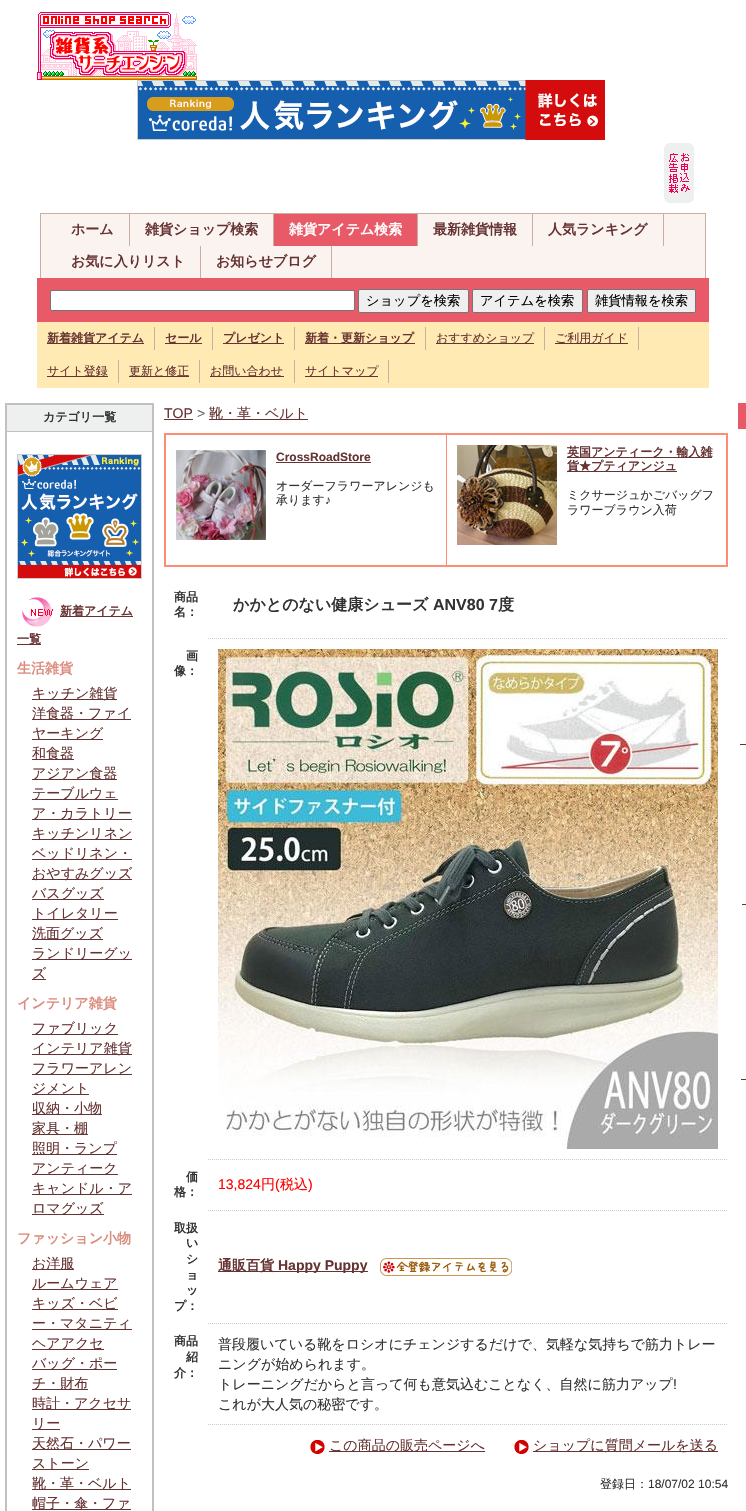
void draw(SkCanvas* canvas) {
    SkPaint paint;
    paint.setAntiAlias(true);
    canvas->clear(0xFFFFFFFF);
    canvas->drawImageRect(SkImages::DeferredFromEncodedData(SkData::MakeFromFileName("img1.png")), SkRect::MakeXYWH(37, 12, 160, 68), SkSamplingOptions());
    canvas->drawImageRect(SkImages::DeferredFromEncodedData(SkData::MakeFromFileName("img2.png")), SkRect::MakeXYWH(137, 80, 468, 60), SkSamplingOptions());
    canvas->drawImageRect(SkImages::DeferredFromEncodedData(SkData::MakeFromFileName("img3.png")), SkRect::MakeXYWH(664, 143, 30, 60), SkSamplingOptions());
    paint.setColor(0xFFFAF3F0);
    canvas->drawRect(SkRect::MakeXYWH(41, 214, 664, 64), paint);
    paint.setColor(0xFFC9AFA1);
    canvas->drawRect(SkRect::MakeXYWH(40, 213, 666, 1), paint);
    canvas->drawRect(SkRect::MakeXYWH(705, 213, 1, 65), paint);
    canvas->drawRect(SkRect::MakeXYWH(40, 213, 1, 65), paint);
    canvas->drawRect(SkRect::MakeXYWH(129, 214, 1, 32), paint);
    SkFont font1(fontMgr->matchFamilyStyle("WenQuanYi Zen Hei", SkFontStyle::Bold()), 14);
    font1.setSubpixel(true);
    paint.setColor(0xFF663333);
    canvas->drawString("ホーム", 71, 234, font1, paint);
    paint.setColor(0xFFC9AFA1);
    canvas->drawRect(SkRect::MakeXYWH(273, 214, 1, 32), paint);
    paint.setColor(0xFF663333);
    canvas->drawString("雑貨ショップ検索", 145, 234, font1, paint);
    paint.setColor(0xFFE95A68);
    canvas->drawRect(SkRect::MakeXYWH(274, 214, 143, 32), paint);
    paint.setColor(0xFFC9AFA1);
    canvas->drawRect(SkRect::MakeXYWH(417, 214, 1, 32), paint);
    paint.setColor(0xFFFFFFFF);
    canvas->drawString("雑貨アイテム検索", 289, 234, font1, paint);
    paint.setColor(0xFFC9AFA1);
    canvas->drawRect(SkRect::MakeXYWH(532, 214, 1, 32), paint);
    paint.setColor(0xFF663333);
    canvas->drawString("最新雑貨情報", 433, 234, font1, paint);
    paint.setColor(0xFFC9AFA1);
    canvas->drawRect(SkRect::MakeXYWH(663, 214, 1, 32), paint);
    paint.setColor(0xFF663333);
    canvas->drawString("人気ランキング", 548, 234, font1, paint);
    paint.setColor(0xFFC9AFA1);
    canvas->drawRect(SkRect::MakeXYWH(200, 246, 1, 32), paint);
    paint.setColor(0xFF663333);
    canvas->drawString("お気に入りリスト", 71, 266, font1, paint);
    paint.setColor(0xFFC9AFA1);
    canvas->drawRect(SkRect::MakeXYWH(331, 246, 1, 32), paint);
    paint.setColor(0xFF663333);
    canvas->drawString("お知らせブログ", 216, 266, font1, paint);
    paint.setColor(0xFFE95A68);
    canvas->drawRect(SkRect::MakeXYWH(37, 278, 672, 44), paint);
    paint.setColor(0xFFFFFFFF);
    canvas->drawRoundRect(SkRect::MakeXYWH(50.5f, 290.5f, 304, 20), 1.5f, 1.5f, paint);
    paint.setStyle(SkPaint::kStroke_Style);
    paint.setStrokeWidth(1);
    paint.setColor(0xFF767676);
    canvas->drawRoundRect(SkRect::MakeXYWH(50.5f, 290.5f, 304, 20), 1.5f, 1.5f, paint);
    paint.setStyle(SkPaint::kFill_Style);
    paint.setColor(0xFFEFEFEF);
    canvas->drawRoundRect(SkRect::MakeXYWH(358.5f, 289.5f, 110, 23), 1.5f, 1.5f, paint);
    paint.setStyle(SkPaint::kStroke_Style);
    paint.setColor(0xFF767676);
    canvas->drawRoundRect(SkRect::MakeXYWH(358.5f, 289.5f, 110, 23), 1.5f, 1.5f, paint);
    SkFont font2(fontMgr->matchFamilyStyle("WenQuanYi Zen Hei", SkFontStyle(500, SkFontStyle::kNormal_Width, SkFontStyle::kUpright_Slant)), 13.25f);
    font2.setSubpixel(true);
    paint.setStyle(SkPaint::kFill_Style);
    paint.setColor(0xFF000000);
    canvas->drawString("ショップを検索", 366, 305, font2, paint);
    paint.setColor(0xFFEFEFEF);
    canvas->drawRoundRect(SkRect::MakeXYWH(472.5f, 289.5f, 110, 23), 1.5f, 1.5f, paint);
    paint.setStyle(SkPaint::kStroke_Style);
    paint.setColor(0xFF767676);
    canvas->drawRoundRect(SkRect::MakeXYWH(472.5f, 289.5f, 110, 23), 1.5f, 1.5f, paint);
    paint.setStyle(SkPaint::kFill_Style);
    paint.setColor(0xFF000000);
    canvas->drawString("アイテムを検索", 480, 305, font2, paint);
    paint.setColor(0xFFEFEFEF);
    canvas->drawRoundRect(SkRect::MakeXYWH(587.5f, 289.5f, 108, 23), 1.5f, 1.5f, paint);
    paint.setStyle(SkPaint::kStroke_Style);
    paint.setColor(0xFF767676);
    canvas->drawRoundRect(SkRect::MakeXYWH(587.5f, 289.5f, 108, 23), 1.5f, 1.5f, paint);
    paint.setStyle(SkPaint::kFill_Style);
    paint.setColor(0xFF000000);
    canvas->drawString("雑貨情報を検索", 595, 305, font2, paint);
    paint.setColor(0xFFFFEAB3);
    canvas->drawRect(SkRect::MakeXYWH(37, 322, 672, 66), paint);
    paint.setColor(0xFFC9AFA1);
    canvas->drawRect(SkRect::MakeXYWH(154, 327, 1, 23), paint);
    paint.setColor(0xFF663333);
    canvas->drawRect(SkRect::MakeXYWH(47, 343, 97, 1), paint);
    SkFont font3(fontMgr->matchFamilyStyle("WenQuanYi Zen Hei", SkFontStyle::Bold()), 12);
    font3.setSubpixel(true);
    canvas->drawString("新着雑貨アイテム", 47, 342, font3, paint);
    paint.setColor(0xFFC9AFA1);
    canvas->drawRect(SkRect::MakeXYWH(212, 327, 1, 23), paint);
    paint.setColor(0xFF663333);
    canvas->drawRect(SkRect::MakeXYWH(165, 343, 37, 1), paint);
    canvas->drawString("セール", 165, 342, font3, paint);
    paint.setColor(0xFFC9AFA1);
    canvas->drawRect(SkRect::MakeXYWH(294, 327, 1, 23), paint);
    paint.setColor(0xFF663333);
    canvas->drawRect(SkRect::MakeXYWH(223, 343, 61, 1), paint);
    canvas->drawString("プレゼント", 223, 342, font3, paint);
    paint.setColor(0xFFC9AFA1);
    canvas->drawRect(SkRect::MakeXYWH(425, 327, 1, 23), paint);
    paint.setColor(0xFF663333);
    canvas->drawRect(SkRect::MakeXYWH(305, 343, 110, 1), paint);
    canvas->drawString("新着・更新ショップ", 305, 342, font3, paint);
    paint.setColor(0xFFC9AFA1);
    canvas->drawRect(SkRect::MakeXYWH(544, 327, 1, 23), paint);
    paint.setColor(0xFF663333);
    canvas->drawRect(SkRect::MakeXYWH(436, 343, 98, 1), paint);
    SkFont font4(fontMgr->matchFamilyStyle("WenQuanYi Zen Hei", SkFontStyle(500, SkFontStyle::kNormal_Width, SkFontStyle::kUpright_Slant)), 12);
    font4.setSubpixel(true);
    canvas->drawString("おすすめショップ", 436, 342, font4, paint);
    paint.setColor(0xFFC9AFA1);
    canvas->drawRect(SkRect::MakeXYWH(638, 327, 1, 23), paint);
    paint.setColor(0xFF663333);
    canvas->drawRect(SkRect::MakeXYWH(555, 343, 73, 1), paint);
    canvas->drawString("ご利用ガイド", 555, 342, font4, paint);
    paint.setColor(0xFFC9AFA1);
    canvas->drawRect(SkRect::MakeXYWH(118, 360, 1, 23), paint);
    paint.setColor(0xFF663333);
    canvas->drawRect(SkRect::MakeXYWH(47, 376, 61, 1), paint);
    canvas->drawString("サイト登録", 47, 375, font4, paint);
    paint.setColor(0xFFC9AFA1);
    canvas->drawRect(SkRect::MakeXYWH(199, 360, 1, 23), paint);
    paint.setColor(0xFF663333);
    canvas->drawRect(SkRect::MakeXYWH(129, 376, 60, 1), paint);
    canvas->drawString("更新と修正", 129, 375, font4, paint);
    paint.setColor(0xFFC9AFA1);
    canvas->drawRect(SkRect::MakeXYWH(294, 360, 1, 23), paint);
    paint.setColor(0xFF663333);
    canvas->drawRect(SkRect::MakeXYWH(210, 376, 74, 1), paint);
    canvas->drawString("お問い合わせ", 210, 375, font4, paint);
    paint.setColor(0xFFC9AFA1);
    canvas->drawRect(SkRect::MakeXYWH(388, 360, 1, 23), paint);
    paint.setColor(0xFF663333);
    canvas->drawRect(SkRect::MakeXYWH(305, 376, 73, 1), paint);
    canvas->drawString("サイトマップ", 305, 375, font4, paint);
    paint.setColor(0xFFC1C1C1);
    canvas->drawRect(SkRect::MakeXYWH(5, 403, 149, 2), paint);
    canvas->drawRect(SkRect::MakeXYWH(6, 431, 148, 1), paint);
    canvas->drawRect(SkRect::MakeXYWH(152, 403, 2, 1108), paint);
    canvas->drawRect(SkRect::MakeXYWH(5, 403, 2, 1108), paint);
    paint.setColor(0xFFEEF0F0);
    canvas->drawRect(SkRect::MakeXYWH(7, 405, 145, 26), paint);
    paint.setColor(0xFF333333);
    canvas->drawString("カテゴリ一覧", 43, 421, font3, paint);
    canvas->drawImageRect(SkImages::DeferredFromEncodedData(SkData::MakeFromFileName("img4.png")), SkRect::MakeXYWH(17, 454, 125, 125), SkSamplingOptions());
    canvas->drawImageRect(SkImages::DeferredFromEncodedData(SkData::MakeFromFileName("img5.png")), SkRect::MakeXYWH(22, 597, 31, 30), SkSamplingOptions());
    paint.setColor(0xFF663333);
    canvas->drawRect(SkRect::MakeXYWH(60, 616, 73, 1), paint);
    canvas->drawString("新着アイテム", 60, 615, font3, paint);
    canvas->drawRect(SkRect::MakeXYWH(17, 644, 24, 1), paint);
    canvas->drawString("一覧", 17, 643, font3, paint);
    paint.setColor(0xFFDC8D7E);
    canvas->drawString("生活雑貨", 17, 673, font1, paint);
    paint.setColor(0xFF663333);
    canvas->drawRect(SkRect::MakeXYWH(32, 699, 85, 1), paint);
    SkFont font5(fontMgr->matchFamilyStyle("WenQuanYi Zen Hei", SkFontStyle(500, SkFontStyle::kNormal_Width, SkFontStyle::kUpright_Slant)), 14);
    font5.setSubpixel(true);
    canvas->drawString("キッチン雑貨", 32, 698, font5, paint);
    canvas->drawRect(SkRect::MakeXYWH(32, 719, 99, 1), paint);
    canvas->drawString("洋食器・ファイ", 32, 718, font5, paint);
    canvas->drawRect(SkRect::MakeXYWH(32, 739, 71, 1), paint);
    canvas->drawString("ヤーキング", 32, 738, font5, paint);
    canvas->drawRect(SkRect::MakeXYWH(32, 759, 42, 1), paint);
    canvas->drawString("和食器", 32, 758, font5, paint);
    canvas->drawRect(SkRect::MakeXYWH(32, 779, 85, 1), paint);
    canvas->drawString("アジアン食器", 32, 778, font5, paint);
    canvas->drawRect(SkRect::MakeXYWH(32, 799, 86, 1), paint);
    canvas->drawString("テーブルウェ", 32, 798, font5, paint);
    canvas->drawRect(SkRect::MakeXYWH(32, 819, 100, 1), paint);
    canvas->drawString("ア・カラトリー", 32, 818, font5, paint);
    canvas->drawRect(SkRect::MakeXYWH(32, 839, 100, 1), paint);
    canvas->drawString("キッチンリネン", 32, 838, font5, paint);
    canvas->drawRect(SkRect::MakeXYWH(32, 859, 100, 1), paint);
    canvas->drawString("ベッドリネン・", 32, 858, font5, paint);
    canvas->drawRect(SkRect::MakeXYWH(32, 879, 100, 1), paint);
    canvas->drawString("おやすみグッズ", 32, 878, font5, paint);
    canvas->drawRect(SkRect::MakeXYWH(32, 899, 72, 1), paint);
    canvas->drawString("バスグッズ", 32, 898, font5, paint);
    canvas->drawRect(SkRect::MakeXYWH(32, 919, 86, 1), paint);
    canvas->drawString("トイレタリー", 32, 918, font5, paint);
    canvas->drawRect(SkRect::MakeXYWH(32, 939, 71, 1), paint);
    canvas->drawString("洗面グッズ", 32, 938, font5, paint);
    canvas->drawRect(SkRect::MakeXYWH(32, 959, 100, 1), paint);
    canvas->drawString("ランドリーグッ", 32, 958, font5, paint);
    canvas->drawString("ズ", 32, 978, font5, paint);
    canvas->drawRect(SkRect::MakeXYWH(32, 979, 14, 1), paint);
    paint.setColor(0xFFDC8D7E);
    canvas->drawString("インテリア雑貨", 17, 1008, font1, paint);
    paint.setColor(0xFF663333);
    canvas->drawRect(SkRect::MakeXYWH(32, 1034, 86, 1), paint);
    canvas->drawString("ファブリック", 32, 1033, font5, paint);
    canvas->drawRect(SkRect::MakeXYWH(32, 1054, 100, 1), paint);
    canvas->drawString("インテリア雑貨", 32, 1053, font5, paint);
    canvas->drawRect(SkRect::MakeXYWH(32, 1074, 100, 1), paint);
    canvas->drawString("フラワーアレン", 32, 1073, font5, paint);
    canvas->drawRect(SkRect::MakeXYWH(32, 1094, 57, 1), paint);
    canvas->drawString("ジメント", 32, 1093, font5, paint);
    canvas->drawRect(SkRect::MakeXYWH(32, 1114, 70, 1), paint);
    canvas->drawString("収納・小物", 32, 1113, font5, paint);
    canvas->drawRect(SkRect::MakeXYWH(32, 1134, 56, 1), paint);
    canvas->drawString("家具・棚", 32, 1133, font5, paint);
    canvas->drawRect(SkRect::MakeXYWH(32, 1154, 85, 1), paint);
    canvas->drawString("照明・ランプ", 32, 1153, font5, paint);
    canvas->drawRect(SkRect::MakeXYWH(32, 1174, 86, 1), paint);
    canvas->drawString("アンティーク", 32, 1173, font5, paint);
    canvas->drawRect(SkRect::MakeXYWH(32, 1194, 100, 1), paint);
    canvas->drawString("キャンドル・ア", 32, 1193, font5, paint);
    canvas->drawRect(SkRect::MakeXYWH(32, 1214, 72, 1), paint);
    canvas->drawString("ロマグッズ", 32, 1213, font5, paint);
    paint.setColor(0xFFDC8D7E);
    canvas->drawString("ファッション小物", 17, 1243, font1, paint);
    paint.setColor(0xFF663333);
    canvas->drawRect(SkRect::MakeXYWH(32, 1269, 42, 1), paint);
    canvas->drawString("お洋服", 32, 1268, font5, paint);
    canvas->drawRect(SkRect::MakeXYWH(32, 1289, 86, 1), paint);
    canvas->drawString("ルームウェア", 32, 1288, font5, paint);
    canvas->drawRect(SkRect::MakeXYWH(32, 1309, 86, 1), paint);
    canvas->drawString("キッズ・ベビ", 32, 1308, font5, paint);
    canvas->drawRect(SkRect::MakeXYWH(32, 1329, 100, 1), paint);
    canvas->drawString("ー・マタニティ", 32, 1328, font5, paint);
    canvas->drawRect(SkRect::MakeXYWH(32, 1349, 72, 1), paint);
    canvas->drawString("ヘアアクセ", 32, 1348, font5, paint);
    canvas->drawRect(SkRect::MakeXYWH(32, 1369, 85, 1), paint);
    canvas->drawString("バッグ・ポー", 32, 1368, font5, paint);
    canvas->drawRect(SkRect::MakeXYWH(32, 1389, 56, 1), paint);
    canvas->drawString("チ・財布", 32, 1388, font5, paint);
    canvas->drawRect(SkRect::MakeXYWH(32, 1409, 99, 1), paint);
    canvas->drawString("時計・アクセサ", 32, 1408, font5, paint);
    canvas->drawRect(SkRect::MakeXYWH(32, 1429, 28, 1), paint);
    canvas->drawString("リー", 32, 1428, font5, paint);
    canvas->drawRect(SkRect::MakeXYWH(32, 1449, 99, 1), paint);
    canvas->drawString("天然石・パワー", 32, 1448, font5, paint);
    canvas->drawRect(SkRect::MakeXYWH(32, 1469, 57, 1), paint);
    canvas->drawString("ストーン", 32, 1468, font5, paint);
    canvas->drawRect(SkRect::MakeXYWH(32, 1489, 99, 1), paint);
    canvas->drawString("靴・革・ベルト", 32, 1488, font5, paint);
    canvas->drawRect(SkRect::MakeXYWH(32, 1509, 99, 1), paint);
    canvas->drawString("帽子・傘・ファ", 32, 1508, font5, paint);
    SkFont font6(fontMgr->matchFamilyStyle("Liberation Sans", SkFontStyle::Normal()), 14);
    font6.setSubpixel(true);
    canvas->drawString("TOP", 164, 418, font6, paint);
    canvas->drawRect(SkRect::MakeXYWH(164, 419, 29, 1), paint);
    paint.setColor(0xFF666666);
    canvas->drawString(">", 197, 418, font6, paint);
    paint.setColor(0xFF663333);
    canvas->drawRect(SkRect::MakeXYWH(209, 419, 99, 1), paint);
    canvas->drawString("靴・革・ベルト", 209, 418, font5, paint);
    paint.setColor(0xFFFF8D76);
    canvas->drawRect(SkRect::MakeXYWH(446, 434, 1, 133), paint);
    canvas->drawRect(SkRect::MakeXYWH(164, 433, 564, 2), paint);
    canvas->drawRect(SkRect::MakeXYWH(726, 433, 2, 134), paint);
    canvas->drawRect(SkRect::MakeXYWH(164, 565, 564, 2), paint);
    canvas->drawRect(SkRect::MakeXYWH(164, 433, 2, 134), paint);
    canvas->drawImageRect(SkImages::DeferredFromEncodedData(SkData::MakeFromFileName("img6.png")), SkRect::MakeXYWH(176, 450, 90, 90), SkSamplingOptions());
    SkFont font7(fontMgr->matchFamilyStyle("Liberation Sans", SkFontStyle::Bold()), 12);
    font7.setSubpixel(true);
    paint.setColor(0xFF663333);
    canvas->drawString("CrossRoadStore", 276, 461, font7, paint);
    canvas->drawRect(SkRect::MakeXYWH(276, 462, 95, 1), paint);
    paint.setColor(0xFF333333);
    canvas->drawString("オーダーフラワーアレンジも", 276, 490, font4, paint);
    canvas->drawString("承ります", 276, 504, font4, paint);
    SkFont font8(fontMgr->matchFamilyStyle("Liberation Sans", SkFontStyle::Normal()), 12);
    font8.setSubpixel(true);
    canvas->drawString("♪", 325, 504, font8, paint);
    canvas->drawImageRect(SkImages::DeferredFromEncodedData(SkData::MakeFromFileName("img7.png")), SkRect::MakeXYWH(457, 445, 100, 100), SkSamplingOptions());
    paint.setColor(0xFF663333);
    canvas->drawRect(SkRect::MakeXYWH(567, 457, 145, 1), paint);
    canvas->drawString("英国アンティーク・輸入雑", 567, 456, font3, paint);
    canvas->drawRect(SkRect::MakeXYWH(567, 471, 110, 1), paint);
    canvas->drawString("貨★プティアンジュ", 567, 470, font3, paint);
    paint.setColor(0xFF333333);
    canvas->drawString("ミクサージュかごバッグフ", 567, 499, font4, paint);
    canvas->drawString("ラワーブラウン入荷", 567, 514, font4, paint);
    canvas->drawString("商品", 174, 601, font3, paint);
    canvas->drawString("名：", 174, 616, font3, paint);
    paint.setStyle(SkPaint::kStroke_Style);
    paint.setColor(0xFFCCCCCC);
    paint.setPathEffect(SkDashPathEffect::Make({{1, 1}}, 0));
    canvas->drawPath(SkPathBuilder().moveTo(208, 638.5f).lineTo(728, 638.5f).detach(), paint);
    paint.setPathEffect(nullptr);
    SkFont font9(fontMgr->matchFamilyStyle("WenQuanYi Zen Hei", SkFontStyle::Bold()), 16);
    font9.setSubpixel(true);
    paint.setStyle(SkPaint::kFill_Style);
    paint.setColor(0xFF333333);
    canvas->drawString("かかとのない健康シューズ", 233, 610, font9, paint);
    SkFont font10(fontMgr->matchFamilyStyle("Liberation Sans", SkFontStyle::Bold()), 16);
    font10.setSubpixel(true);
    canvas->drawString("ANV80 7", 433, 610, font10, paint);
    canvas->drawString("度", 498, 610, font9, paint);
    canvas->drawString("画", 186, 660, font3, paint);
    canvas->drawString("像：", 174, 675, font3, paint);
    paint.setStyle(SkPaint::kStroke_Style);
    paint.setColor(0xFFCCCCCC);
    paint.setPathEffect(SkDashPathEffect::Make({{1, 1}}, 0));
    canvas->drawPath(SkPathBuilder().moveTo(208, 1159.5f).lineTo(728, 1159.5f).detach(), paint);
    paint.setPathEffect(nullptr);
    canvas->drawImageRect(SkImages::DeferredFromEncodedData(SkData::MakeFromFileName("img8.png")), SkRect::MakeXYWH(218, 649, 500, 500), SkSamplingOptions());
    paint.setStyle(SkPaint::kFill_Style);
    paint.setColor(0xFF333333);
    canvas->drawString("価", 186, 1181, font3, paint);
    canvas->drawString("格：", 174, 1196, font3, paint);
    paint.setStyle(SkPaint::kStroke_Style);
    paint.setColor(0xFFCCCCCC);
    paint.setPathEffect(SkDashPathEffect::Make({{1, 1}}, 0));
    canvas->drawPath(SkPathBuilder().moveTo(208, 1210.5f).lineTo(728, 1210.5f).detach(), paint);
    paint.setPathEffect(nullptr);
    paint.setStyle(SkPaint::kFill_Style);
    paint.setColor(0xFFFF0000);
    canvas->drawString("13,824", 218, 1189, font6, paint);
    canvas->drawString("円", 261, 1189, font5, paint);
    canvas->drawString("(", 275, 1189, font6, paint);
    canvas->drawString("税込", 280, 1189, font5, paint);
    canvas->drawString(")", 308, 1189, font6, paint);
    paint.setColor(0xFF333333);
    canvas->drawString("取扱", 174, 1232, font3, paint);
    canvas->drawString("い", 186, 1247, font3, paint);
    canvas->drawString("シ", 186, 1263, font3, paint);
    canvas->drawString("ョ", 186, 1279, font3, paint);
    canvas->drawString("ッ", 186, 1294, font3, paint);
    canvas->drawString("プ：", 174, 1310, font3, paint);
    paint.setStyle(SkPaint::kStroke_Style);
    paint.setColor(0xFFCCCCCC);
    paint.setPathEffect(SkDashPathEffect::Make({{1, 1}}, 0));
    canvas->drawPath(SkPathBuilder().moveTo(208, 1323.5f).lineTo(728, 1323.5f).detach(), paint);
    paint.setPathEffect(nullptr);
    paint.setStyle(SkPaint::kFill_Style);
    paint.setColor(0xFF663333);
    canvas->drawRect(SkRect::MakeXYWH(218, 1271, 150, 1), paint);
    canvas->drawString("通販百貨", 218, 1270, font1, paint);
    SkFont font11(fontMgr->matchFamilyStyle("Liberation Sans", SkFontStyle::Bold()), 14);
    font11.setSubpixel(true);
    canvas->drawString("Happy Puppy", 278, 1270, font11, paint);
    canvas->drawImageRect(SkImages::DeferredFromEncodedData(SkData::MakeFromFileName("img9.png")), SkRect::MakeXYWH(380, 1258, 132, 18), SkSamplingOptions());
    paint.setColor(0xFF333333);
    canvas->drawString("商品", 174, 1345, font3, paint);
    canvas->drawString("紹", 186, 1361, font3, paint);
    canvas->drawString("介：", 174, 1377, font3, paint);
    paint.setStyle(SkPaint::kStroke_Style);
    paint.setColor(0xFFCCCCCC);
    paint.setPathEffect(SkDashPathEffect::Make({{1, 1}}, 0));
    canvas->drawPath(SkPathBuilder().moveTo(208, 1424.5f).lineTo(728, 1424.5f).detach(), paint);
    paint.setPathEffect(nullptr);
    paint.setStyle(SkPaint::kFill_Style);
    paint.setColor(0xFF333333);
    canvas->drawString("普段履いている靴をロシオにチェンジするだけで、気軽な気持ちで筋力トレー", 218, 1349, font5, paint);
    canvas->drawString("ニングが始められます。", 218, 1369, font5, paint);
    canvas->drawString("トレーニングだからと言って何も意気込むことなく、自然に筋力アップ", 218, 1389, font5, paint);
    canvas->drawString("!", 673, 1389, font6, paint);
    canvas->drawString("これが大人気の秘密です。", 218, 1409, font5, paint);
    canvas->drawImageRect(SkImages::DeferredFromEncodedData(SkData::MakeFromFileName("img10.png")), SkRect::MakeXYWH(310, 1440, 15, 14), SkSamplingOptions());
    paint.setColor(0xFF663333);
    canvas->drawRect(SkRect::MakeXYWH(329, 1451, 156, 1), paint);
    canvas->drawString("この商品の販売ページへ", 329, 1450, font5, paint);
    canvas->drawImageRect(SkImages::DeferredFromEncodedData(SkData::MakeFromFileName("img10.png")), SkRect::MakeXYWH(514, 1440, 15, 14), SkSamplingOptions());
    canvas->drawRect(SkRect::MakeXYWH(533, 1451, 185, 1), paint);
    canvas->drawString("ショップに質問メールを送る", 533, 1450, font5, paint);
    paint.setColor(0xFF333333);
    canvas->drawString("登録日：", 600, 1488, font4, paint);
    canvas->drawString("18/07/02 10:54", 648, 1488, font8, paint);
    paint.setColor(0xFFE95A68);
    canvas->drawRect(SkRect::MakeXYWH(738, 403, 8, 26), paint);
    paint.setColor(0xFF663333);
    canvas->drawRect(SkRect::MakeXYWH(740, 744, 6, 1), paint);
    canvas->drawRect(SkRect::MakeXYWH(742, 904, 4, 1), paint);
    canvas->drawRect(SkRect::MakeXYWH(741, 1079, 5, 1), paint);
}
